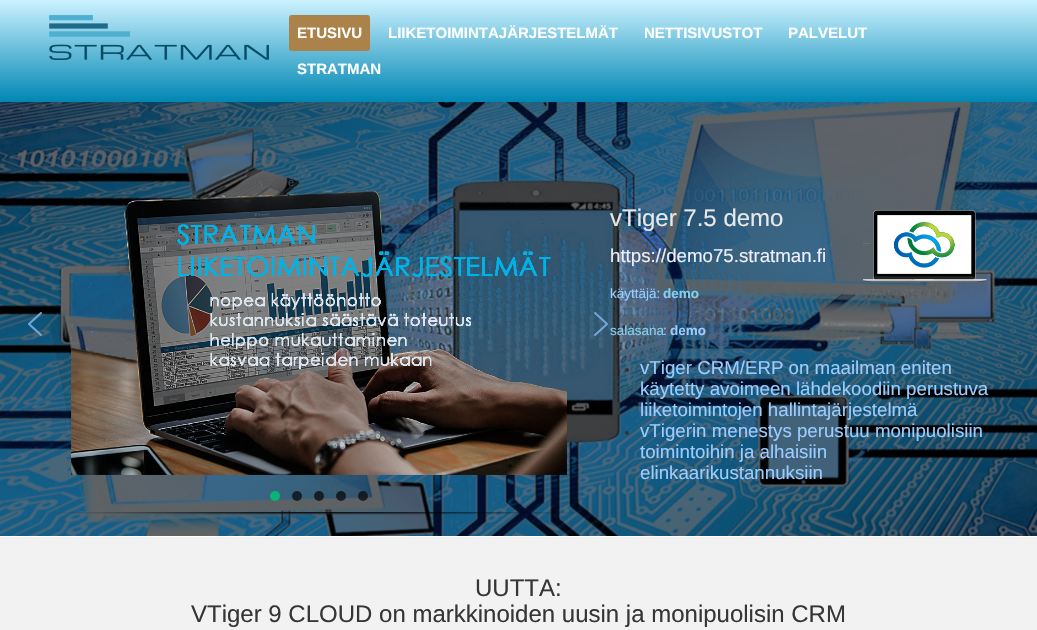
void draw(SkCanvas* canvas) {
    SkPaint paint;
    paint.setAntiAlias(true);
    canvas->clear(0xFFFFFFFF);
    {
        const SkColor colors[] = {0xFFCCF2FF, 0xFF0086B3};
        const float stops[] = {0, 1};
        const SkPoint ends[] = {{519, 0}, {519, 102}};
        paint.setShader(SkGradientShader::MakeLinear(ends, colors, stops, 2, SkTileMode::kClamp));
        paint.setAlpha(255);
    }
    canvas->drawRect(SkRect::MakeXYWH(0, 0, 1037, 102), paint);
    canvas->drawImageRect(SkImages::DeferredFromEncodedData(SkData::MakeFromFileName("img1.png")), SkRect::MakeXYWH(49, 15, 220, 45), SkSamplingOptions());
    paint.setShader(nullptr);
    paint.setColor(0xFFAA824A);
    canvas->drawRoundRect(SkRect::MakeXYWH(289, 15, 81, 36), 3, 3, paint);
    SkFont font1(fontMgr->matchFamilyStyle("Liberation Sans", SkFontStyle::Bold()), 15);
    font1.setSubpixel(true);
    paint.setColor(0xFFFFFFFF);
    canvas->drawString("ETUSIVU", 297, 38, font1, paint);
    canvas->drawString("LIIKETOIMINTAJÄRJESTELMÄT", 388, 38, font1, paint);
    canvas->drawString("NETTISIVUSTOT", 644, 38, font1, paint);
    canvas->drawString("PALVELUT", 788, 38, font1, paint);
    canvas->drawString("STRATMAN", 297, 74, font1, paint);
    canvas->drawImageRect(SkImages::DeferredFromEncodedData(SkData::MakeFromFileName("img2.png")), SkRect::MakeXYWH(0, 102, 1037, 434), SkSamplingOptions());
    canvas->drawImageRect(SkImages::DeferredFromEncodedData(SkData::MakeFromFileName("img3.png")), SkRect::MakeXYWH(71, 172, 496, 303), SkSamplingOptions());
    SkFont font2(fontMgr->matchFamilyStyle("Liberation Sans", SkFontStyle::Normal()), 11);
    font2.setSubpixel(true);
    paint.setColor(0xFF335467);
    canvas->drawString("e", 288, 186, font2, paint);
    canvas->drawImageRect(SkImages::DeferredFromEncodedData(SkData::MakeFromFileName("img4.png")), SkRect::MakeXYWH(28, 312, 14, 24), SkSamplingOptions());
    canvas->drawImageRect(SkImages::DeferredFromEncodedData(SkData::MakeFromFileName("img5.png")), SkRect::MakeXYWH(594, 312, 14, 24), SkSamplingOptions());
    paint.setColor(0xFF09B474);
    canvas->drawCircle(275, 496, 5, paint);
    paint.setColor(0xAB000000);
    canvas->drawCircle(297, 496, 5, paint);
    canvas->drawCircle(319, 496, 5, paint);
    canvas->drawCircle(341, 496, 5, paint);
    canvas->drawCircle(363, 496, 5, paint);
    canvas->drawImageRect(SkImages::DeferredFromEncodedData(SkData::MakeFromFileName("img6.png")), SkRect::MakeXYWH(52, 512, 526, 3), SkSamplingOptions());
    SkFont font3(fontMgr->matchFamilyStyle("Liberation Sans", SkFontStyle::Normal()), 24);
    font3.setSubpixel(true);
    paint.setColor(0xFFE8E8E8);
    canvas->drawString("vTiger 7.5 demo", 610, 226, font3, paint);
    SkFont font4(fontMgr->matchFamilyStyle("Liberation Sans", SkFontStyle::Normal()), 18.7f);
    font4.setSubpixel(true);
    paint.setColor(0xFFEEEFF9);
    canvas->drawString("https://demo75.stratman.fi", 610, 262, font4, paint);
    SkFont font5(fontMgr->matchFamilyStyle("Liberation Sans", SkFontStyle::Normal()), 13.5f);
    font5.setSubpixel(true);
    paint.setColor(0xFF99CCFF);
    canvas->drawString("käyttäjä:", 610, 298, font5, paint);
    SkFont font6(fontMgr->matchFamilyStyle("Liberation Sans", SkFontStyle::Bold()), 13.5f);
    font6.setSubpixel(true);
    paint.setColor(0xFF87CEEB);
    canvas->drawString("demo", 663, 298, font6, paint);
    canvas->drawString("salasana", 610, 335, font5, paint);
    paint.setColor(0xFF99CCFF);
    canvas->drawString(":", 663, 335, font5, paint);
    canvas->drawString("demo", 670, 335, font6, paint);
    canvas->drawImageRect(SkImages::DeferredFromEncodedData(SkData::MakeFromFileName("img7.png")), SkRect::MakeXYWH(863, 208, 125, 74), SkSamplingOptions());
    paint.setColor(0xFF333333);
    canvas->drawCircle(627, 370, 2, paint);
    paint.setColor(0xFF99CCFF);
    canvas->drawString("vTiger CRM/ERP on maailman eniten", 640, 374, font4, paint);
    canvas->drawString("käytetty avoimeen lähdekoodiin perustuva", 640, 395, font4, paint);
    canvas->drawString("liiketoimintojen hallintajärjestelmä", 640, 416, font4, paint);
    paint.setColor(0xFF333333);
    canvas->drawCircle(627, 433, 2, paint);
    paint.setColor(0xFF99CCFF);
    canvas->drawString("vTigerin menestys perustuu monipuolisiin", 640, 437, font4, paint);
    canvas->drawString("toimintoihin ja alhaisiin", 640, 458, font4, paint);
    canvas->drawString("elinkaarikustannuksiin", 640, 479, font4, paint);
    paint.setColor(0xFFF2F2F2);
    canvas->drawRect(SkRect::MakeXYWH(0, 537, 1037, 93), paint);
    paint.setColor(0xFF363636);
    canvas->drawString("UUTTA:", 475, 596, font3, paint);
    canvas->drawString("VTiger 9 CLOUD on markkinoiden uusin ja monipuolisin CRM", 191, 622, font3, paint);
}
